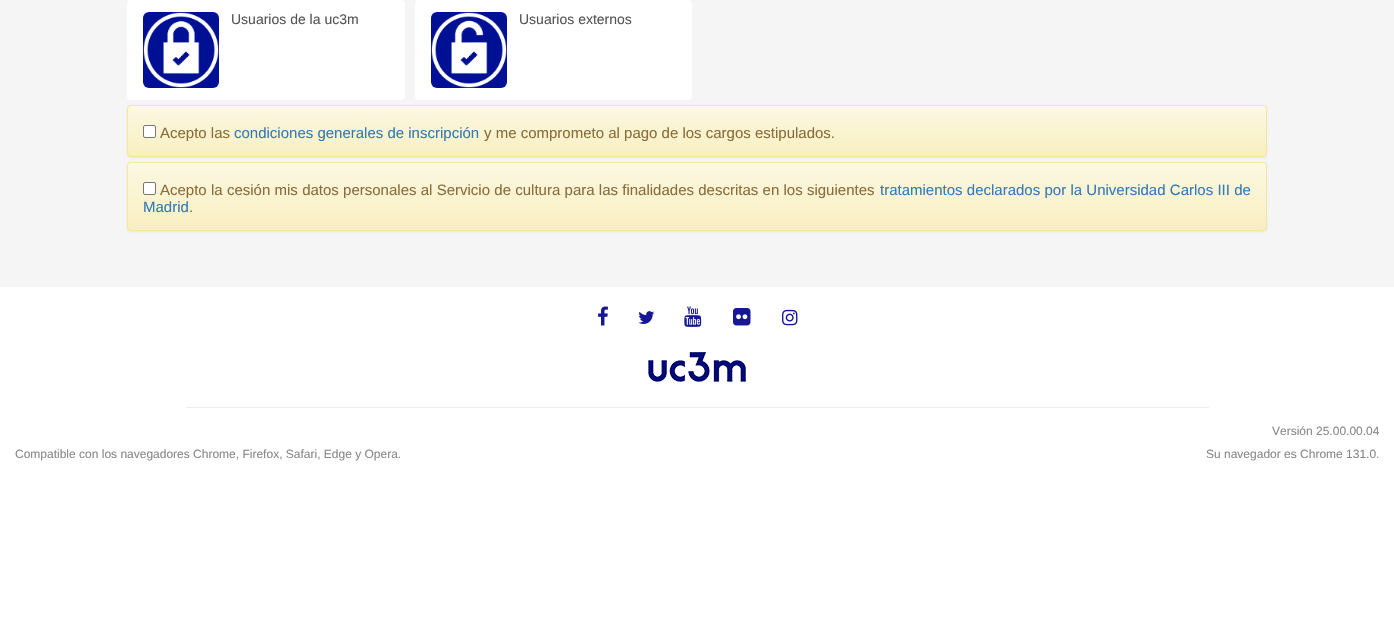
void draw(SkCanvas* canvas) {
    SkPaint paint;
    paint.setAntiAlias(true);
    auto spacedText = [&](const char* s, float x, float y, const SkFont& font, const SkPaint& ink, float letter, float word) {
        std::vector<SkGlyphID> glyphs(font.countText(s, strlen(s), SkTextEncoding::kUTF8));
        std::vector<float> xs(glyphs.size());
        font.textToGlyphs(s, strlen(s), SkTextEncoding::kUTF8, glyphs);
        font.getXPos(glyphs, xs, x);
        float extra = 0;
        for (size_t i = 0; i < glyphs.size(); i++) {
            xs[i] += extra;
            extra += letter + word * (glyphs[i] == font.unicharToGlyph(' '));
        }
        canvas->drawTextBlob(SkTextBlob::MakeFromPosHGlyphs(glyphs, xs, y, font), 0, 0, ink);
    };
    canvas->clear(0xFFFFFFFF);
    paint.setColor(0xFFF5F5F5);
    canvas->drawRect(SkRect::MakeXYWH(0, 0, 1394, 287), paint);
    paint.setColor(0xFFFFFFFF);
    canvas->drawRoundRect(SkRect::MakeXYWH(127, 0, 278, 100), 4, 4, paint);
    paint.setColor(0xFF001095);
    canvas->drawRoundRect(SkRect::MakeXYWH(143, 12, 76, 76), 6, 6, paint);
    canvas->drawImageRect(SkImages::DeferredFromEncodedData(SkData::MakeFromFileName("img1.png")), SkRect::MakeXYWH(143, 12, 76, 76), SkSamplingOptions());
    SkFont font1(fontMgr->matchFamilyStyle("Liberation Sans", SkFontStyle::Normal()), 14);
    font1.setSubpixel(true);
    paint.setColor(0xFF555555);
    canvas->drawString("Usuarios de la uc3m", 231, 24, font1, paint);
    paint.setColor(0xFFFFFFFF);
    canvas->drawRoundRect(SkRect::MakeXYWH(415, 0, 277, 100), 4, 4, paint);
    paint.setColor(0xFF001095);
    canvas->drawRoundRect(SkRect::MakeXYWH(431, 12, 76, 76), 6, 6, paint);
    canvas->drawImageRect(SkImages::DeferredFromEncodedData(SkData::MakeFromFileName("img2.png")), SkRect::MakeXYWH(431, 12, 76, 76), SkSamplingOptions());
    paint.setColor(0xFF555555);
    canvas->drawString("Usuarios externos", 519, 24, font1, paint);
    paint.setColor(0x0D000000);
    paint.setMaskFilter(SkMaskFilter::MakeBlur(kNormal_SkBlurStyle, 1));
    canvas->drawRoundRect(SkRect::MakeXYWH(127, 106, 1140, 52), 4, 4, paint);
    paint.setMaskFilter(nullptr);
    canvas->save();
    canvas->clipPath(SkPathBuilder().moveTo(131, 105).lineTo(1263, 105).cubicTo(1265, 105, 1267, 107, 1267, 109).lineTo(1267, 153).cubicTo(1267, 155, 1265, 157, 1263, 157).lineTo(131, 157).cubicTo(129, 157, 127, 155, 127, 153).lineTo(127, 109).cubicTo(127, 107, 129, 105, 131, 105).close().detach(), true);
    {
        const SkColor colors[] = {0xFFFCF8E3, 0xFFF8EFC0};
        const float stops[] = {0, 1};
        const SkPoint ends[] = {{697, 106}, {697, 156}};
        paint.setShader(SkGradientShader::MakeLinear(ends, colors, stops, 2, SkTileMode::kClamp));
        paint.setAlpha(255);
    }
    canvas->drawRect(SkRect::MakeXYWH(127, 106, 1140, 50), paint);
    canvas->restore();
    paint.setShader(nullptr);
    paint.setColor(0xFFFDFAEA);
    canvas->drawPath(SkPathBuilder().moveTo(131, 107).lineTo(1263, 107).cubicTo(1265, 107, 1266, 108, 1266, 110).lineTo(1266, 109).cubicTo(1266, 107, 1265, 106, 1263, 106).lineTo(131, 106).cubicTo(129, 106, 128, 107, 128, 109).lineTo(128, 110).cubicTo(128, 108, 129, 107, 131, 107).close().detach(), paint);
    paint.setStyle(SkPaint::kStroke_Style);
    paint.setStrokeWidth(1);
    paint.setColor(0xFFF5E79E);
    canvas->drawRoundRect(SkRect::MakeXYWH(127.5f, 105.5f, 1139, 51), 3.5f, 3.5f, paint);
    paint.setStyle(SkPaint::kFill_Style);
    paint.setColor(0xFFFFFFFF);
    canvas->drawRoundRect(SkRect::MakeXYWH(143.5f, 125.5f, 12, 12), 1.5f, 1.5f, paint);
    paint.setStyle(SkPaint::kStroke_Style);
    paint.setColor(0xFF767676);
    canvas->drawRoundRect(SkRect::MakeXYWH(143.5f, 125.5f, 12, 12), 1.5f, 1.5f, paint);
    SkFont font2(fontMgr->matchFamilyStyle("Liberation Sans", SkFontStyle::Normal()), 15);
    font2.setSubpixel(true);
    paint.setStyle(SkPaint::kFill_Style);
    paint.setColor(0xFF8A6D3B);
    canvas->drawString("Acepto las", 160, 138, font2, paint);
    paint.setColor(0xFF337AB7);
    canvas->drawString("condiciones generales de inscripción", 234, 138, font2, paint);
    paint.setColor(0xFF8A6D3B);
    canvas->drawString("y me comprometo al pago de los cargos estipulados.", 484, 138, font2, paint);
    paint.setColor(0x0D000000);
    paint.setMaskFilter(SkMaskFilter::MakeBlur(kNormal_SkBlurStyle, 1));
    canvas->drawRoundRect(SkRect::MakeXYWH(127, 163, 1140, 69), 4, 4, paint);
    paint.setMaskFilter(nullptr);
    canvas->save();
    canvas->clipPath(SkPathBuilder().moveTo(131, 162).lineTo(1263, 162).cubicTo(1265, 162, 1267, 164, 1267, 166).lineTo(1267, 227).cubicTo(1267, 229, 1265, 231, 1263, 231).lineTo(131, 231).cubicTo(129, 231, 127, 229, 127, 227).lineTo(127, 166).cubicTo(127, 164, 129, 162, 131, 162).close().detach(), true);
    {
        const SkColor colors[] = {0xFFFCF8E3, 0xFFF8EFC0};
        const float stops[] = {0, 1};
        const SkPoint ends[] = {{697, 163}, {697, 230}};
        paint.setShader(SkGradientShader::MakeLinear(ends, colors, stops, 2, SkTileMode::kClamp));
        paint.setAlpha(255);
    }
    canvas->drawRect(SkRect::MakeXYWH(127, 163, 1140, 67), paint);
    canvas->restore();
    paint.setShader(nullptr);
    paint.setColor(0xFFFDFAEA);
    canvas->drawPath(SkPathBuilder().moveTo(131, 164).lineTo(1263, 164).cubicTo(1265, 164, 1266, 165, 1266, 167).lineTo(1266, 166).cubicTo(1266, 164, 1265, 163, 1263, 163).lineTo(131, 163).cubicTo(129, 163, 128, 164, 128, 166).lineTo(128, 167).cubicTo(128, 165, 129, 164, 131, 164).close().detach(), paint);
    paint.setStyle(SkPaint::kStroke_Style);
    paint.setColor(0xFFF5E79E);
    canvas->drawRoundRect(SkRect::MakeXYWH(127.5f, 162.5f, 1139, 68), 3.5f, 3.5f, paint);
    paint.setStyle(SkPaint::kFill_Style);
    paint.setColor(0xFFFFFFFF);
    canvas->drawRoundRect(SkRect::MakeXYWH(143.5f, 182.5f, 12, 12), 1.5f, 1.5f, paint);
    paint.setStyle(SkPaint::kStroke_Style);
    paint.setColor(0xFF767676);
    canvas->drawRoundRect(SkRect::MakeXYWH(143.5f, 182.5f, 12, 12), 1.5f, 1.5f, paint);
    paint.setStyle(SkPaint::kFill_Style);
    paint.setColor(0xFF8A6D3B);
    spacedText("Acepto la cesión mis datos personales al Servicio de cultura para las finalidades descritas en los siguientes", 160, 195, font2, paint, 0, 0.1f);
    paint.setColor(0xFF337AB7);
    spacedText("tratamientos declarados por la Universidad Carlos III de", 880, 195, font2, paint, 0, 0.1f);
    canvas->drawString("Madrid", 143, 212, font2, paint);
    paint.setColor(0xFF8A6D3B);
    canvas->drawString(".", 189, 212, font2, paint);
    canvas->drawImageRect(SkImages::DeferredFromEncodedData(SkData::MakeFromFileName("img3.png")), SkRect::MakeXYWH(598, 306, 10, 20), SkSamplingOptions());
    canvas->drawImageRect(SkImages::DeferredFromEncodedData(SkData::MakeFromFileName("img4.png")), SkRect::MakeXYWH(638, 311, 17, 13), SkSamplingOptions());
    canvas->drawImageRect(SkImages::DeferredFromEncodedData(SkData::MakeFromFileName("img5.png")), SkRect::MakeXYWH(684, 306, 18, 21), SkSamplingOptions());
    canvas->drawImageRect(SkImages::DeferredFromEncodedData(SkData::MakeFromFileName("img6.png")), SkRect::MakeXYWH(733, 308, 18, 18), SkSamplingOptions());
    canvas->drawImageRect(SkImages::DeferredFromEncodedData(SkData::MakeFromFileName("img7.png")), SkRect::MakeXYWH(782, 309, 16, 17), SkSamplingOptions());
    canvas->drawImageRect(SkImages::DeferredFromEncodedData(SkData::MakeFromFileName("img8.png")), SkRect::MakeXYWH(648, 352, 98, 30), SkSamplingOptions());
    paint.setColor(0xFFEEEEEE);
    canvas->drawRect(SkRect::MakeXYWH(186, 407, 1023, 1), paint);
    SkFont font3(fontMgr->matchFamilyStyle("Liberation Sans", SkFontStyle::Normal()), 12);
    font3.setSubpixel(true);
    paint.setColor(0xFF888888);
    canvas->drawString("Versión 25.00.00.04", 1272, 435, font3, paint);
    canvas->drawString("Compatible con los navegadores Chrome, Firefox, Safari, Edge y Opera.", 15, 458, font3, paint);
    canvas->drawString("Su navegador es Chrome 131.0.", 1206, 458, font3, paint);
}
